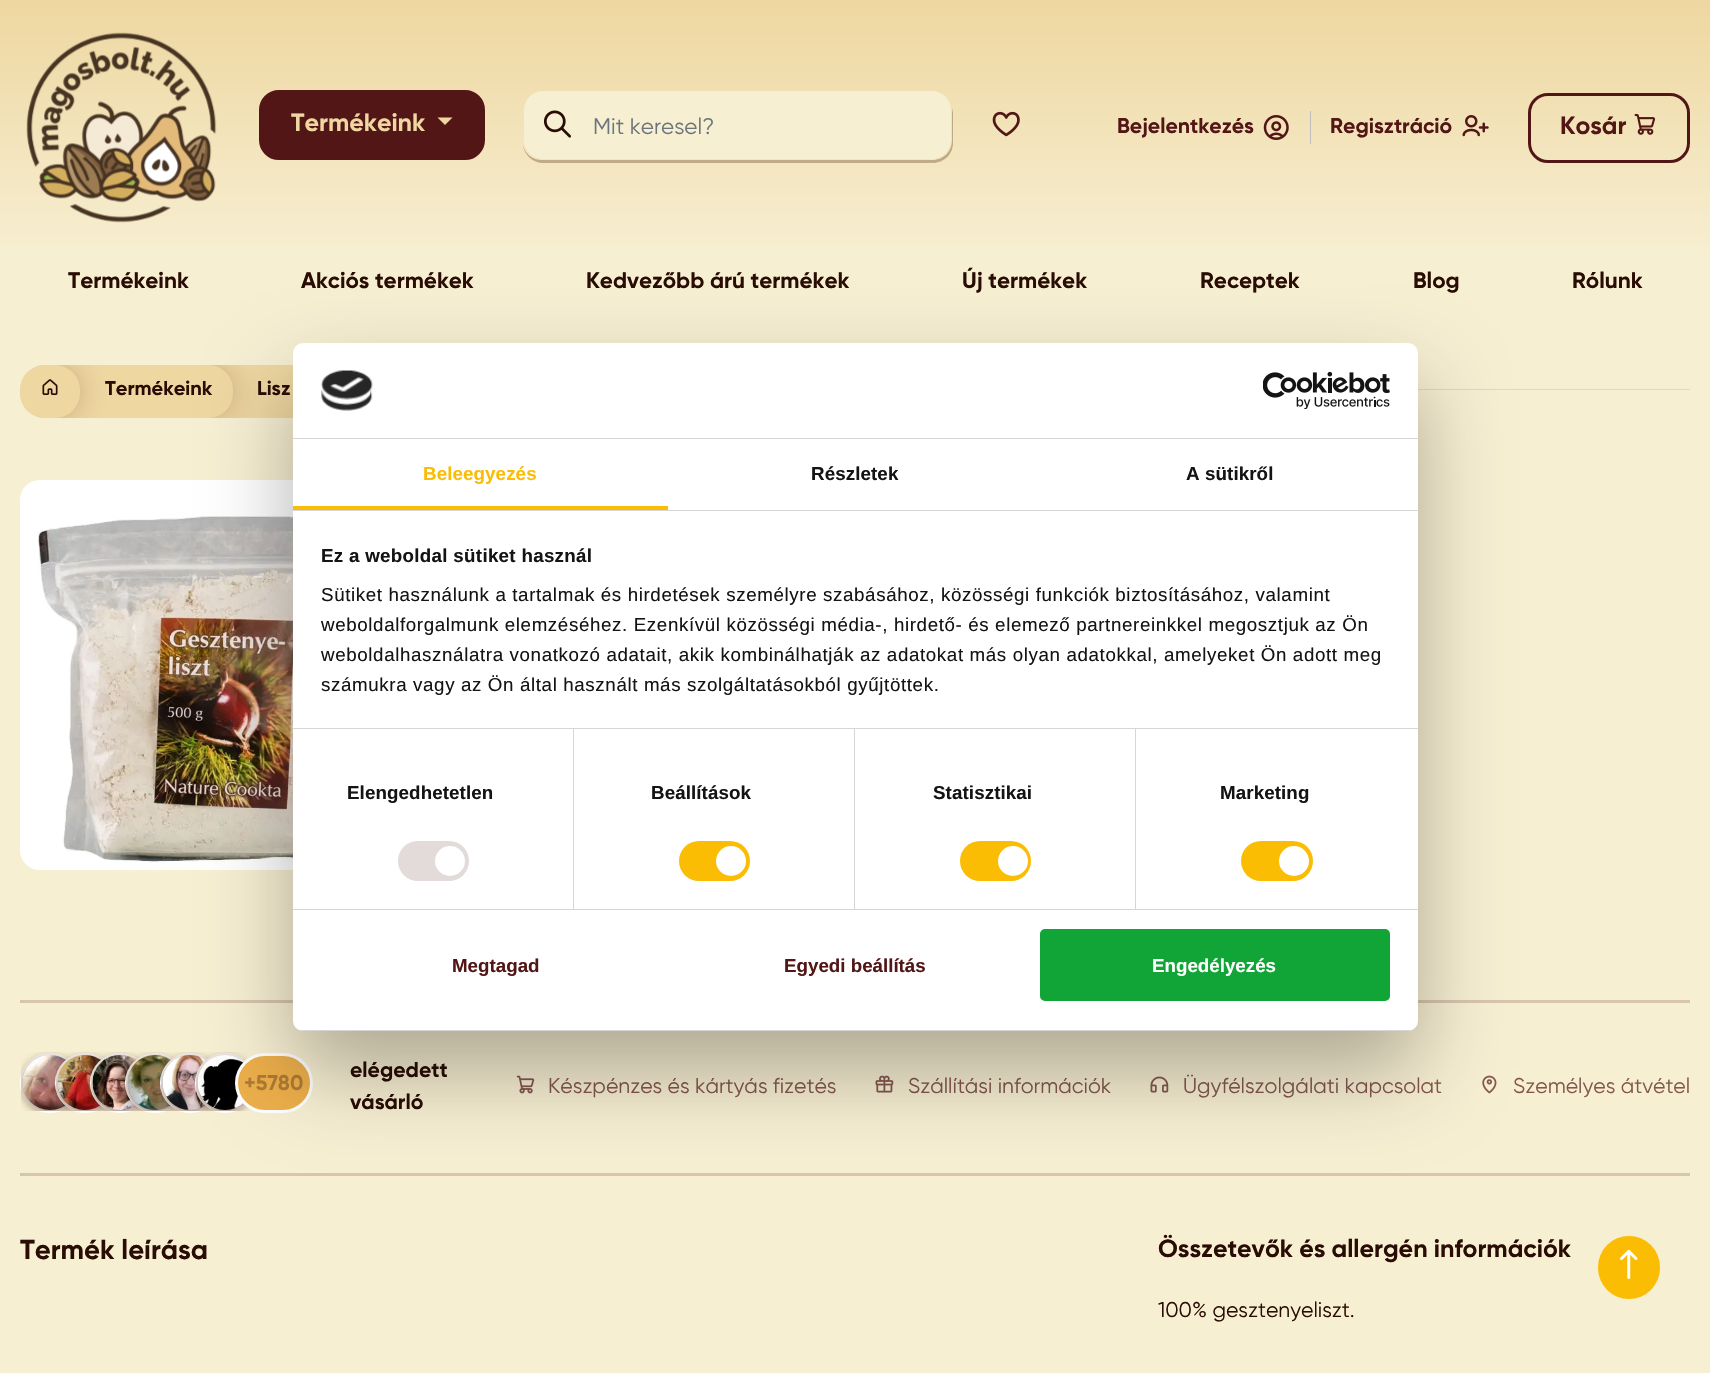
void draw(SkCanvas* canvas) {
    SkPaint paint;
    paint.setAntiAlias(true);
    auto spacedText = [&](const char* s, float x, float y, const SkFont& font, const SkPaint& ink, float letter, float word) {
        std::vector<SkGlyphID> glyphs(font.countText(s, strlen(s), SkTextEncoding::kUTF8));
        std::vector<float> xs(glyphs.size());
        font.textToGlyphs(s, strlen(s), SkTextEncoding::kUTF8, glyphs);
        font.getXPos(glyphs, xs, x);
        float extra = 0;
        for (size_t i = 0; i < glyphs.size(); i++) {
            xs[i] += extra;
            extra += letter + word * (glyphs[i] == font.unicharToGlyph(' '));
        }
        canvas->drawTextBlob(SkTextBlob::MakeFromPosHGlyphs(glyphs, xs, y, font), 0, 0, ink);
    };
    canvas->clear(0xFFF7EFD2);
    {
        const SkColor colors[] = {0xFFEED7A1, 0xFFF7EFD2};
        const float stops[] = {0, 1};
        const SkPoint ends[] = {{0.6f, 0}, {0.6f, 261}};
        paint.setShader(SkGradientShader::MakeLinear(ends, colors, stops, 2, SkTileMode::kClamp));
        paint.setAlpha(255);
    }
    canvas->drawRect(SkRect::MakeXYWH(0, 0, 1710, 248), paint);
    canvas->drawImageRect(SkImages::DeferredFromEncodedData(SkData::MakeFromFileName("img1.png")), SkRect::MakeXYWH(26, 32, 191, 191), SkSamplingOptions());
    paint.setShader(nullptr);
    paint.setColor(0xFF531616);
    canvas->drawRoundRect(SkRect::MakeXYWH(260.5f, 91.5f, 223, 67), 18.5f, 18.5f, paint);
    paint.setStyle(SkPaint::kStroke_Style);
    paint.setStrokeWidth(3);
    canvas->drawRoundRect(SkRect::MakeXYWH(260.5f, 91.5f, 223, 67), 18.5f, 18.5f, paint);
    SkFont font1(fontMgr->matchFamilyStyle("Gilroy", SkFontStyle::Bold()), 25);
    font1.setSubpixel(true);
    paint.setStyle(SkPaint::kFill_Style);
    paint.setColor(0xFFEED7A1);
    canvas->drawString("Termékeink", 291, 131, font1, paint);
    canvas->drawPath(SkPathBuilder().moveTo(437.5f, 117.5f).lineTo(452.5f, 117.5f).lineTo(445, 125).close().detach(), paint);
    paint.setColor(0x52532C16);
    canvas->drawPath(SkPathBuilder().moveTo(523, 145).cubicTo(524, 155, 533, 163, 543, 163).lineTo(933, 163).cubicTo(944, 163, 953, 154, 953, 143).lineTo(953, 113).lineTo(952, 108).lineTo(952, 140).cubicTo(952, 151, 944, 160, 932, 160).lineTo(542, 160).cubicTo(533, 160, 525, 154, 523, 145).close().detach(), paint);
    paint.setColor(0xFFF7EFD2);
    canvas->drawRoundRect(SkRect::MakeXYWH(524, 91, 427, 68), 19, 19, paint);
    canvas->drawImageRect(SkImages::DeferredFromEncodedData(SkData::MakeFromFileName("img2.png")), SkRect::MakeXYWH(543, 110, 28, 28), SkSamplingOptions());
    SkFont font2(fontMgr->matchFamilyStyle("Gilroy", SkFontStyle::Normal()), 22.5f);
    font2.setSubpixel(true);
    paint.setColor(0xFF6C757D);
    canvas->drawString("Mit keresel?", 593, 134, font2, paint);
    canvas->drawImageRect(SkImages::DeferredFromEncodedData(SkData::MakeFromFileName("img3.png")), SkRect::MakeXYWH(992, 111, 28, 26), SkSamplingOptions());
    paint.setColor(0xFFBEBEBE);
    canvas->drawRect(SkRect::MakeXYWH(1310, 111, 1, 33), paint);
    SkFont font3(fontMgr->matchFamilyStyle("Gilroy", SkFontStyle::Bold()), 21.25f);
    font3.setSubpixel(true);
    paint.setColor(0xFF531616);
    canvas->drawString("Bejelentkezés", 1117, 133, font3, paint);
    canvas->drawImageRect(SkImages::DeferredFromEncodedData(SkData::MakeFromFileName("img4.png")), SkRect::MakeXYWH(1263, 115, 26, 25), SkSamplingOptions());
    canvas->drawString("Regisztráció", 1330, 133, font3, paint);
    canvas->drawImageRect(SkImages::DeferredFromEncodedData(SkData::MakeFromFileName("img5.png")), SkRect::MakeXYWH(1462, 115, 27, 22), SkSamplingOptions());
    paint.setStyle(SkPaint::kStroke_Style);
    canvas->drawRoundRect(SkRect::MakeXYWH(1529.5f, 94.5f, 159, 67), 18.5f, 18.5f, paint);
    paint.setStyle(SkPaint::kFill_Style);
    canvas->drawString("Kosár", 1560, 134, font1, paint);
    canvas->drawImageRect(SkImages::DeferredFromEncodedData(SkData::MakeFromFileName("img6.png")), SkRect::MakeXYWH(1634, 113, 22, 22), SkSamplingOptions());
    SkFont font4(fontMgr->matchFamilyStyle("Gilroy", SkFontStyle::Bold()), 22.5f);
    font4.setSubpixel(true);
    paint.setColor(0xFF290D04);
    canvas->drawString("Termékeink", 68, 288, font4, paint);
    canvas->drawString("Akciós termékek", 301, 288, font4, paint);
    canvas->drawString("Kedvezőbb árú termékek", 586, 288, font4, paint);
    canvas->drawString("Új termékek", 962, 288, font4, paint);
    canvas->drawString("Receptek", 1200, 288, font4, paint);
    canvas->drawString("Blog", 1413, 288, font4, paint);
    canvas->drawString("Rólunk", 1572, 288, font4, paint);
    paint.setColor(0xFFEED7A1);
    canvas->drawRect(SkRect::MakeXYWH(208, 365, 85, 53), paint);
    canvas->save();
    canvas->clipPath(SkPathBuilder().moveTo(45, 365).lineTo(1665, 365).cubicTo(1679, 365, 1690, 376, 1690, 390).lineTo(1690, 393).cubicTo(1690, 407, 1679, 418, 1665, 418).lineTo(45, 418).cubicTo(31, 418, 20, 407, 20, 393).lineTo(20, 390).cubicTo(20, 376, 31, 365, 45, 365).close().detach(), true);
    paint.setColor(0x3D531616);
    paint.setMaskFilter(SkMaskFilter::MakeBlur(kNormal_SkBlurStyle, 15));
    canvas->drawRoundRect(SkRect::MakeXYWH(43, 365, 190, 53), 25, 25, paint);
    paint.setMaskFilter(nullptr);
    canvas->restore();
    paint.setColor(0xFFEED7A1);
    canvas->drawPath(SkPathBuilder().moveTo(43, 365).lineTo(208, 365).cubicTo(222, 365, 233, 376, 233, 390).lineTo(233, 393).cubicTo(233, 407, 222, 418, 208, 418).lineTo(43, 418).close().detach(), paint);
    canvas->save();
    canvas->clipPath(SkPathBuilder().moveTo(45, 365).lineTo(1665, 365).cubicTo(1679, 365, 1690, 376, 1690, 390).lineTo(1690, 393).cubicTo(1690, 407, 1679, 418, 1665, 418).lineTo(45, 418).cubicTo(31, 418, 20, 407, 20, 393).lineTo(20, 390).cubicTo(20, 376, 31, 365, 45, 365).close().detach(), true);
    paint.setColor(0x3D531616);
    paint.setMaskFilter(SkMaskFilter::MakeBlur(kNormal_SkBlurStyle, 15));
    canvas->drawRoundRect(SkRect::MakeXYWH(20, 365, 60, 53), 25, 25, paint);
    paint.setMaskFilter(nullptr);
    canvas->restore();
    paint.setColor(0xFFEED7A1);
    canvas->drawRoundRect(SkRect::MakeXYWH(20, 365, 60, 53), 25, 25, paint);
    canvas->drawImageRect(SkImages::DeferredFromEncodedData(SkData::MakeFromFileName("img7.png")), SkRect::MakeXYWH(42, 379, 16, 16), SkSamplingOptions());
    SkFont font5(fontMgr->matchFamilyStyle("Gilroy", SkFontStyle::Bold()), 20);
    font5.setSubpixel(true);
    paint.setColor(0xFF290D04);
    canvas->drawString("Termékeink", 105, 395, font5, paint);
    canvas->drawString("Lisz", 257, 395, font5, paint);
    paint.setColor(0xFFEED7A1);
    canvas->drawRect(SkRect::MakeXYWH(1418, 389, 272, 1), paint);
    canvas->drawImageRect(SkImages::DeferredFromEncodedData(SkData::MakeFromFileName("img8.png")), SkRect::MakeXYWH(20, 480, 273, 390), SkSamplingOptions());
    paint.setColor(0xFFD7C5AE);
    canvas->drawRect(SkRect::MakeXYWH(20, 1000, 1670, 3), paint);
    paint.setStyle(SkPaint::kStroke_Style);
    paint.setColor(0xFFFFFFFF);
    canvas->drawCircle(50, 1083, 28.5f, paint);
    canvas->drawImageRect(SkImages::DeferredFromEncodedData(SkData::MakeFromFileName("img9.png")), SkRect::MakeXYWH(21, 1052, 56, 59), SkSamplingOptions());
    canvas->drawCircle(85, 1083, 28.5f, paint);
    canvas->drawImageRect(SkImages::DeferredFromEncodedData(SkData::MakeFromFileName("img10.png")), SkRect::MakeXYWH(56, 1052, 56, 59), SkSamplingOptions());
    canvas->drawCircle(120, 1083, 28.5f, paint);
    canvas->drawImageRect(SkImages::DeferredFromEncodedData(SkData::MakeFromFileName("img11.png")), SkRect::MakeXYWH(91, 1052, 56, 59), SkSamplingOptions());
    canvas->drawCircle(155, 1083, 28.5f, paint);
    canvas->drawImageRect(SkImages::DeferredFromEncodedData(SkData::MakeFromFileName("img12.png")), SkRect::MakeXYWH(126, 1052, 56, 59), SkSamplingOptions());
    canvas->drawCircle(190, 1083, 28.5f, paint);
    canvas->drawImageRect(SkImages::DeferredFromEncodedData(SkData::MakeFromFileName("img13.png")), SkRect::MakeXYWH(161, 1052, 56, 59), SkSamplingOptions());
    canvas->drawCircle(225, 1083, 28.5f, paint);
    canvas->drawImageRect(SkImages::DeferredFromEncodedData(SkData::MakeFromFileName("img14.png")), SkRect::MakeXYWH(196, 1052, 55, 59), SkSamplingOptions());
    paint.setStyle(SkPaint::kFill_Style);
    paint.setColor(0xFFEDAF4B);
    canvas->drawRoundRect(SkRect::MakeXYWH(236.5f, 1054.5f, 75, 57), 28.5f, 28.5f, paint);
    paint.setStyle(SkPaint::kStroke_Style);
    paint.setColor(0xFFFFFFFF);
    canvas->drawRoundRect(SkRect::MakeXYWH(236.5f, 1054.5f, 75, 57), 28.5f, 28.5f, paint);
    paint.setStyle(SkPaint::kFill_Style);
    paint.setColor(0xFFAE7B34);
    canvas->drawString("+5780", 244, 1090, font3, paint);
    paint.setColor(0xFF290D04);
    canvas->drawString("elégedett", 350, 1077, font3, paint);
    canvas->drawString("vásárló", 350, 1109, font3, paint);
    canvas->drawImageRect(SkImages::DeferredFromEncodedData(SkData::MakeFromFileName("img15.png")), SkRect::MakeXYWH(516, 1075, 19, 19), SkSamplingOptions());
    SkFont font6(fontMgr->matchFamilyStyle("Gilroy", SkFontStyle::Normal()), 21.25f);
    font6.setSubpixel(true);
    paint.setColor(0xFF84574E);
    canvas->drawString("Készpénzes és kártyás fizetés", 548, 1093, font6, paint);
    canvas->drawImageRect(SkImages::DeferredFromEncodedData(SkData::MakeFromFileName("img16.png")), SkRect::MakeXYWH(875, 1075, 19, 18), SkSamplingOptions());
    canvas->drawString("Szállítási információk", 908, 1093, font6, paint);
    canvas->drawImageRect(SkImages::DeferredFromEncodedData(SkData::MakeFromFileName("img17.png")), SkRect::MakeXYWH(1150, 1076, 19, 17), SkSamplingOptions());
    canvas->drawString("Ügyfélszolgálati kapcsolat", 1183, 1093, font6, paint);
    canvas->drawImageRect(SkImages::DeferredFromEncodedData(SkData::MakeFromFileName("img18.png")), SkRect::MakeXYWH(1482, 1075, 15, 19), SkSamplingOptions());
    canvas->drawString("Személyes átvétel", 1513, 1093, font6, paint);
    paint.setColor(0xFFD7C5AE);
    canvas->drawRect(SkRect::MakeXYWH(20, 1173, 1670, 3), paint);
    SkFont font7(fontMgr->matchFamilyStyle("Gilroy", SkFontStyle::Bold()), 27.5f);
    font7.setSubpixel(true);
    paint.setColor(0xFF290D04);
    canvas->drawString("Termék leírása", 20, 1259, font7, paint);
    canvas->drawString("Összetevők és allergén információk", 1158, 1257, font1, paint);
    canvas->drawString("100% gesztenyeliszt.", 1158, 1317, font6, paint);
    paint.setColor(0x4D000000);
    paint.setMaskFilter(SkMaskFilter::MakeBlur(kNormal_SkBlurStyle, 42.5f));
    canvas->drawRoundRect(SkRect::MakeXYWH(293, 383, 1125, 688), 10, 10, paint);
    paint.setMaskFilter(nullptr);
    paint.setColor(0xFFFFFFFF);
    canvas->drawRoundRect(SkRect::MakeXYWH(293, 343, 1125, 688), 10, 10, paint);
    paint.setColor(0xFFD6D6D6);
    canvas->drawRect(SkRect::MakeXYWH(293, 438, 1125, 1), paint);
    canvas->drawImageRect(SkImages::DeferredFromEncodedData(SkData::MakeFromFileName("img19.png")), SkRect::MakeXYWH(321, 370, 52, 41), SkSamplingOptions());
    canvas->drawImageRect(SkImages::DeferredFromEncodedData(SkData::MakeFromFileName("img20.png")), SkRect::MakeXYWH(1263, 371, 127, 38), SkSamplingOptions());
    canvas->drawRect(SkRect::MakeXYWH(293, 510, 1125, 1), paint);
    paint.setColor(0xFFFBBC04);
    canvas->drawRect(SkRect::MakeXYWH(293, 506, 375, 4), paint);
    SkFont font8(fontMgr->matchFamilyStyle("Liberation Sans", SkFontStyle::Bold()), 18.75f);
    font8.setSubpixel(true);
    spacedText("Beleegyezés", 423, 480, font8, paint, 0.1f, 0);
    paint.setColor(0xFF141414);
    spacedText("Részletek", 811, 480, font8, paint, 0.1f, 0);
    spacedText("A sütikről", 1186, 480, font8, paint, 0.1f, 0);
    paint.setColor(0xFFD6D6D6);
    canvas->drawRect(SkRect::MakeXYWH(293, 728, 1125, 1), paint);
    paint.setColor(0xFF141414);
    spacedText("Ez a weboldal sütiket használ", 321, 562, font8, paint, 0.3f, 0);
    SkFont font9(fontMgr->matchFamilyStyle("Liberation Sans", SkFontStyle::Normal()), 18.75f);
    font9.setSubpixel(true);
    spacedText("Sütiket használunk a tartalmak és hirdetések személyre szabásához, közösségi funkciók biztosításához, valamint", 321, 601, font9, paint, 0.62f, 0);
    spacedText("weboldalforgalmunk elemzéséhez. Ezenkívül közösségi média-, hirdető- és elemező partnereinkkel megosztjuk az Ön", 321, 631, font9, paint, 0.62f, 0);
    spacedText("weboldalhasználatra vonatkozó adatait, akik kombinálhatják az adatokat más olyan adatokkal, amelyeket Ön adott meg", 321, 661, font9, paint, 0.62f, 0);
    spacedText("számukra vagy az Ön által használt más szolgáltatásokból gyűjtöttek.", 321, 691, font9, paint, 0.62f, 0);
    paint.setColor(0xFFD6D6D6);
    canvas->drawRect(SkRect::MakeXYWH(293, 909, 1125, 1), paint);
    canvas->drawRect(SkRect::MakeXYWH(573, 729, 1, 180), paint);
    paint.setColor(0xFF141414);
    spacedText("Elengedhetetlen", 347, 799, font8, paint, 0.1f, 0);
    paint.setColor(0xFFE3DADA);
    canvas->drawRoundRect(SkRect::MakeXYWH(398, 841, 71, 40), 20, 20, paint);
    paint.setColor(0xFFFFFFFF);
    canvas->drawCircle(450, 861, 15, paint);
    paint.setColor(0xFFD6D6D6);
    canvas->drawRect(SkRect::MakeXYWH(854, 729, 1, 180), paint);
    paint.setColor(0xFF141414);
    spacedText("Beállítások", 651, 799, font8, paint, 0.1f, 0);
    paint.setColor(0xFFFBBC04);
    canvas->drawRoundRect(SkRect::MakeXYWH(679, 841, 71, 40), 20, 20, paint);
    paint.setColor(0xFFFFFFFF);
    canvas->drawCircle(731, 861, 15, paint);
    paint.setColor(0xFFD6D6D6);
    canvas->drawRect(SkRect::MakeXYWH(1135, 729, 1, 180), paint);
    paint.setColor(0xFF141414);
    spacedText("Statisztikai", 933, 799, font8, paint, 0.1f, 0);
    paint.setColor(0xFFFBBC04);
    canvas->drawRoundRect(SkRect::MakeXYWH(960, 841, 71, 40), 20, 20, paint);
    paint.setColor(0xFFFFFFFF);
    canvas->drawCircle(1013, 861, 15, paint);
    paint.setColor(0xFF141414);
    spacedText("Marketing", 1220, 799, font8, paint, 0.1f, 0);
    paint.setColor(0xFFFBBC04);
    canvas->drawRoundRect(SkRect::MakeXYWH(1241, 841, 72, 40), 20, 20, paint);
    paint.setColor(0xFFFFFFFF);
    canvas->drawCircle(1294, 861, 15, paint);
    canvas->save();
    canvas->clipPath(SkPathBuilder().moveTo(303, 343).lineTo(1408, 343).cubicTo(1413.5f, 343, 1418, 347.5f, 1418, 353).lineTo(1418, 1021).cubicTo(1418, 1026.5f, 1413.5f, 1031, 1408, 1031).lineTo(303, 1031).cubicTo(297.5f, 1031, 293, 1026.5f, 293, 1021).lineTo(293, 353).cubicTo(293, 347.5f, 297.5f, 343, 303, 343).close().detach(), true);
    paint.setColor(0xFFD6D6D6);
    canvas->drawRect(SkRect::MakeXYWH(293, 1030, 1125, 1), paint);
    canvas->restore();
    paint.setColor(0xFF531616);
    canvas->drawString("Megtagad", 452, 972, font8, paint);
    canvas->drawString("Egyedi beállítás", 784, 972, font8, paint);
    paint.setColor(0xFF10A536);
    canvas->drawRoundRect(SkRect::MakeXYWH(1041.5f, 930.5f, 347, 69), 3.5f, 3.5f, paint);
    paint.setStyle(SkPaint::kStroke_Style);
    canvas->drawRoundRect(SkRect::MakeXYWH(1041.5f, 930.5f, 347, 69), 3.5f, 3.5f, paint);
    paint.setStyle(SkPaint::kFill_Style);
    paint.setColor(0xFFFFFFFF);
    canvas->drawString("Engedélyezés", 1152, 972, font8, paint);
    paint.setColor(0xFFFBBC04);
    canvas->drawRoundRect(SkRect::MakeXYWH(1598, 1236, 62, 63), 31, 31, paint);
    canvas->drawImageRect(SkImages::DeferredFromEncodedData(SkData::MakeFromFileName("img21.png")), SkRect::MakeXYWH(1620, 1249, 18, 30), SkSamplingOptions());
}
